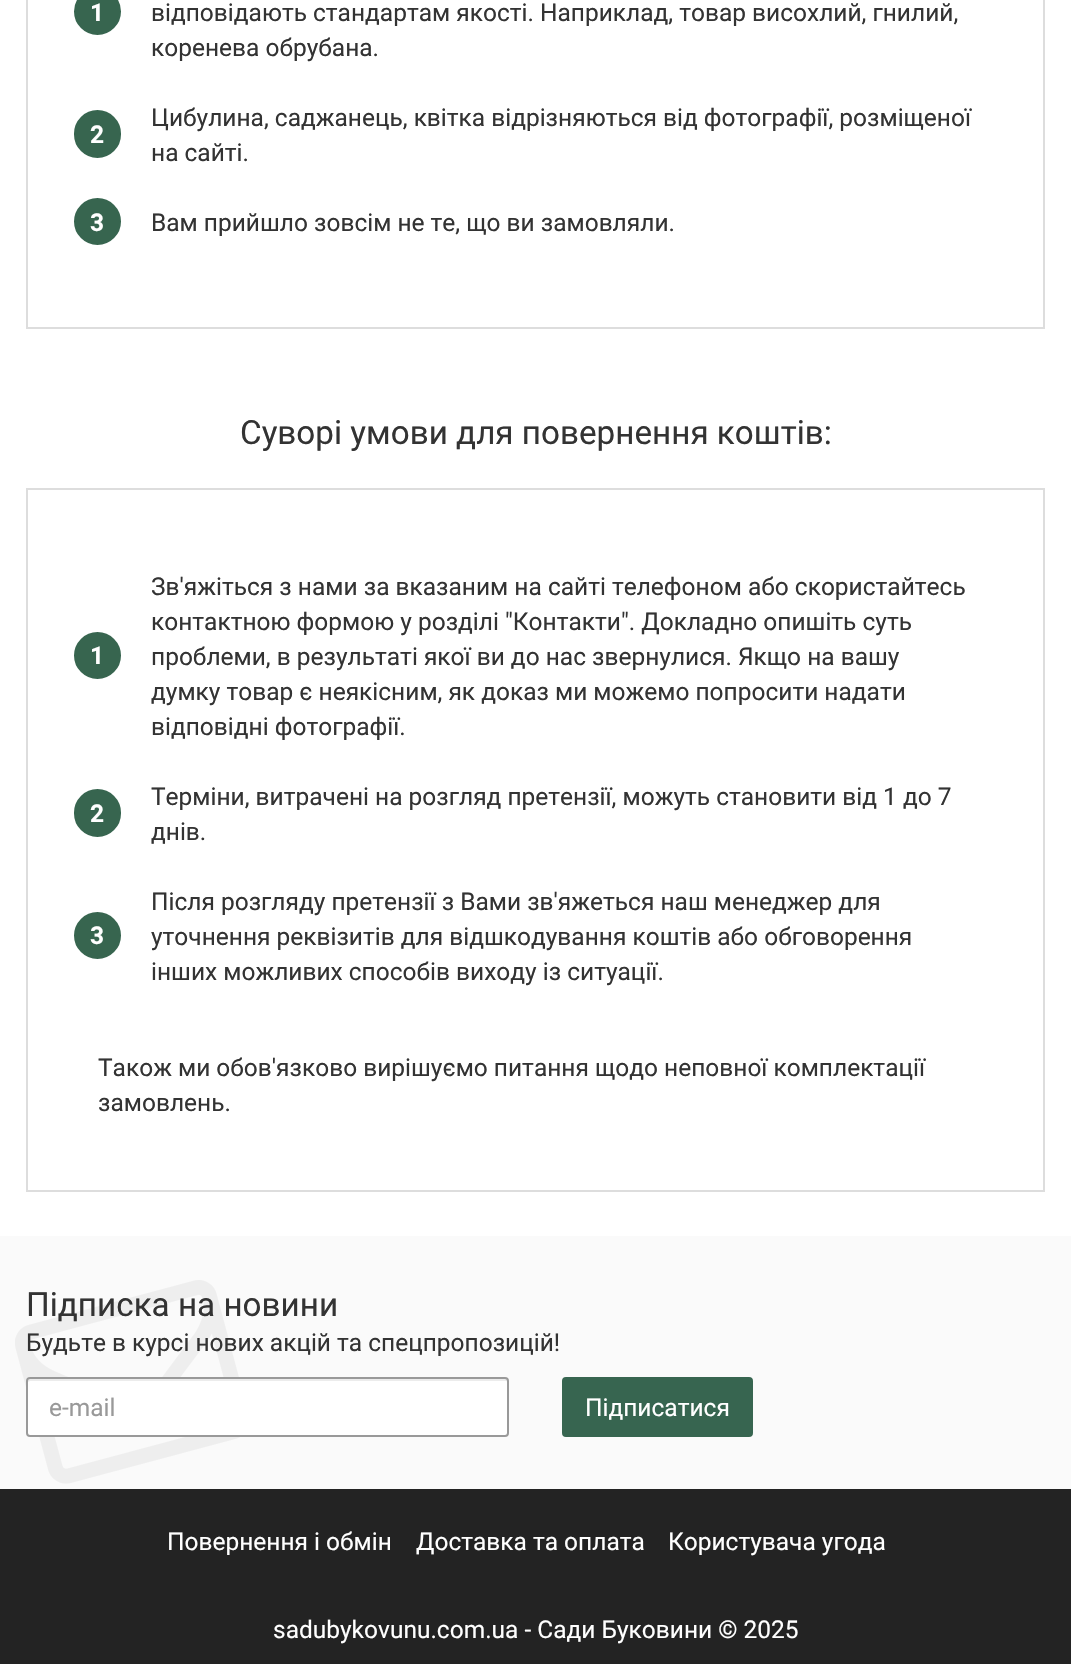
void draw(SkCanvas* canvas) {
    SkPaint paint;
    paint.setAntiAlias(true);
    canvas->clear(0xFFFFFFFF);
    paint.setStyle(SkPaint::kStroke_Style);
    paint.setStrokeWidth(2);
    paint.setColor(0xFFDDDDDD);
    canvas->drawRect(SkRect::MakeXYWH(27, -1, 1017, 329), paint);
    paint.setStyle(SkPaint::kFill_Style);
    paint.setColor(0xFF37654F);
    canvas->drawCircle(97.5f, 11.5f, 27, paint);
    paint.setStyle(SkPaint::kStroke_Style);
    paint.setStrokeWidth(7);
    paint.setColor(0xFFFFFFFF);
    canvas->drawCircle(97.5f, 11.5f, 27, paint);
    SkFont font1(fontMgr->matchFamilyStyle("Roboto", SkFontStyle::Bold()), 24.5f);
    font1.setSubpixel(true);
    paint.setStyle(SkPaint::kFill_Style);
    canvas->drawString("1", 90, 21, font1, paint);
    SkFont font2(fontMgr->matchFamilyStyle("Roboto", SkFontStyle::Normal()), 24.5f);
    font2.setSubpixel(true);
    paint.setColor(0xFF333333);
    canvas->drawString("відповідають стандартам якості. Наприклад, товар висохлий, гнилий,", 151, 21, font2, paint);
    canvas->drawString("коренева обрубана.", 151, 56, font2, paint);
    canvas->drawString("Цибулина, саджанець, квітка відрізняються від фотографії, розміщеної", 151, 126, font2, paint);
    paint.setColor(0xFF37654F);
    canvas->drawRoundRect(SkRect::MakeXYWH(70.5f, 106.5f, 54, 55), 27, 27, paint);
    paint.setStyle(SkPaint::kStroke_Style);
    paint.setColor(0xFFFFFFFF);
    canvas->drawRoundRect(SkRect::MakeXYWH(70.5f, 106.5f, 54, 55), 27, 27, paint);
    paint.setStyle(SkPaint::kFill_Style);
    canvas->drawString("2", 90, 143, font1, paint);
    paint.setColor(0xFF333333);
    canvas->drawString("на сайті.", 151, 161, font2, paint);
    paint.setColor(0xFF37654F);
    canvas->drawCircle(97.5f, 221.5f, 27, paint);
    paint.setStyle(SkPaint::kStroke_Style);
    paint.setColor(0xFFFFFFFF);
    canvas->drawCircle(97.5f, 221.5f, 27, paint);
    paint.setStyle(SkPaint::kFill_Style);
    canvas->drawString("3", 90, 231, font1, paint);
    paint.setColor(0xFF333333);
    canvas->drawString("Вам прийшло зовсім не те, що ви замовляли.", 151, 231, font2, paint);
    SkFont font3(fontMgr->matchFamilyStyle("Roboto", SkFontStyle::Normal()), 33.25f);
    font3.setSubpixel(true);
    canvas->drawString("Суворі умови для повернення коштів:", 240, 444, font3, paint);
    paint.setStyle(SkPaint::kStroke_Style);
    paint.setStrokeWidth(2);
    paint.setColor(0xFFDDDDDD);
    canvas->drawRect(SkRect::MakeXYWH(27, 489, 1017, 702), paint);
    paint.setStyle(SkPaint::kFill_Style);
    paint.setColor(0xFF333333);
    canvas->drawString("Зв'яжіться з нами за вказаним на сайті телефоном або скористайтесь", 151, 595, font2, paint);
    canvas->drawString("контактною формою у розділі \"Контакти\". Докладно опишіть суть", 151, 630, font2, paint);
    paint.setColor(0xFF37654F);
    canvas->drawCircle(97.5f, 655.5f, 27, paint);
    paint.setStyle(SkPaint::kStroke_Style);
    paint.setStrokeWidth(7);
    paint.setColor(0xFFFFFFFF);
    canvas->drawCircle(97.5f, 655.5f, 27, paint);
    paint.setStyle(SkPaint::kFill_Style);
    canvas->drawString("1", 90, 664, font1, paint);
    paint.setColor(0xFF333333);
    canvas->drawString("проблеми, в результаті якої ви до нас звернулися. Якщо на вашу", 151, 665, font2, paint);
    canvas->drawString("думку товар є неякісним, як доказ ми можемо попросити надати", 151, 700, font2, paint);
    canvas->drawString("відповідні фотографії.", 151, 735, font2, paint);
    canvas->drawString("Терміни, витрачені на розгляд претензії, можуть становити від 1 до 7", 151, 805, font2, paint);
    paint.setColor(0xFF37654F);
    canvas->drawRoundRect(SkRect::MakeXYWH(70.5f, 785.5f, 54, 55), 27, 27, paint);
    paint.setStyle(SkPaint::kStroke_Style);
    paint.setColor(0xFFFFFFFF);
    canvas->drawRoundRect(SkRect::MakeXYWH(70.5f, 785.5f, 54, 55), 27, 27, paint);
    paint.setStyle(SkPaint::kFill_Style);
    canvas->drawString("2", 90, 822, font1, paint);
    paint.setColor(0xFF333333);
    canvas->drawString("днів.", 151, 840, font2, paint);
    canvas->drawString("Після розгляду претензії з Вами зв'яжеться наш менеджер для", 151, 910, font2, paint);
    paint.setColor(0xFF37654F);
    canvas->drawCircle(97.5f, 935.5f, 27, paint);
    paint.setStyle(SkPaint::kStroke_Style);
    paint.setColor(0xFFFFFFFF);
    canvas->drawCircle(97.5f, 935.5f, 27, paint);
    paint.setStyle(SkPaint::kFill_Style);
    canvas->drawString("3", 90, 944, font1, paint);
    paint.setColor(0xFF333333);
    canvas->drawString("уточнення реквізитів для відшкодування коштів або обговорення", 151, 945, font2, paint);
    canvas->drawString("інших можливих способів виходу із ситуації.", 151, 980, font2, paint);
    canvas->drawString("Також ми обов'язково вирішуємо питання щодо неповної комплектації", 98, 1076, font2, paint);
    canvas->drawString("замовлень.", 98, 1111, font2, paint);
    paint.setColor(0xFFFAFAFA);
    canvas->drawRect(SkRect::MakeXYWH(0, 1236, 1071, 253), paint);
    canvas->drawImageRect(SkImages::DeferredFromEncodedData(SkData::MakeFromFileName("img1.png")), SkRect::MakeXYWH(15, 1280, 225, 204), SkSamplingOptions());
    paint.setColor(0xFF333333);
    canvas->drawString("Підписка на новини", 26, 1316, font3, paint);
    canvas->drawString("Будьте в курсі нових акцій та спецпропозицій!", 26, 1351, font2, paint);
    paint.setColor(0xFFFFFFFF);
    canvas->drawRoundRect(SkRect::MakeXYWH(26, 1377, 483, 60), 4, 4, paint);
    paint.setColor(0xFFECECEC);
    canvas->drawPath(SkPathBuilder().moveTo(30, 1381).lineTo(506, 1381).lineTo(508, 1382).lineTo(508, 1380).lineTo(506, 1379).lineTo(29, 1379).cubicTo(28, 1380, 28, 1381, 28, 1382).close().detach(), paint);
    paint.setStyle(SkPaint::kStroke_Style);
    paint.setStrokeWidth(2);
    paint.setColor(0xFF999999);
    canvas->drawRoundRect(SkRect::MakeXYWH(27, 1378, 481, 58), 3, 3, paint);
    paint.setStyle(SkPaint::kFill_Style);
    canvas->drawString("e-mail", 49, 1416, font2, paint);
    paint.setColor(0xFF376550);
    canvas->drawRoundRect(SkRect::MakeXYWH(563, 1378, 189, 58), 3, 3, paint);
    paint.setStyle(SkPaint::kStroke_Style);
    canvas->drawRoundRect(SkRect::MakeXYWH(563, 1378, 189, 58), 3, 3, paint);
    paint.setStyle(SkPaint::kFill_Style);
    paint.setColor(0xFFFFFFFF);
    canvas->drawString("Підписатися", 585, 1416, font2, paint);
    paint.setColor(0xFF232323);
    canvas->drawRect(SkRect::MakeXYWH(0, 1489, 1071, 175), paint);
    paint.setColor(0xFFFFFFFF);
    canvas->drawString("Повернення i обмін", 167, 1550, font2, paint);
    canvas->drawString("Доставка та оплата", 416, 1550, font2, paint);
    canvas->drawString("Користувача угода", 668, 1550, font2, paint);
    canvas->drawString("sadubykovunu.com.ua - Сади Буковини © 2025", 273, 1638, font2, paint);
}
